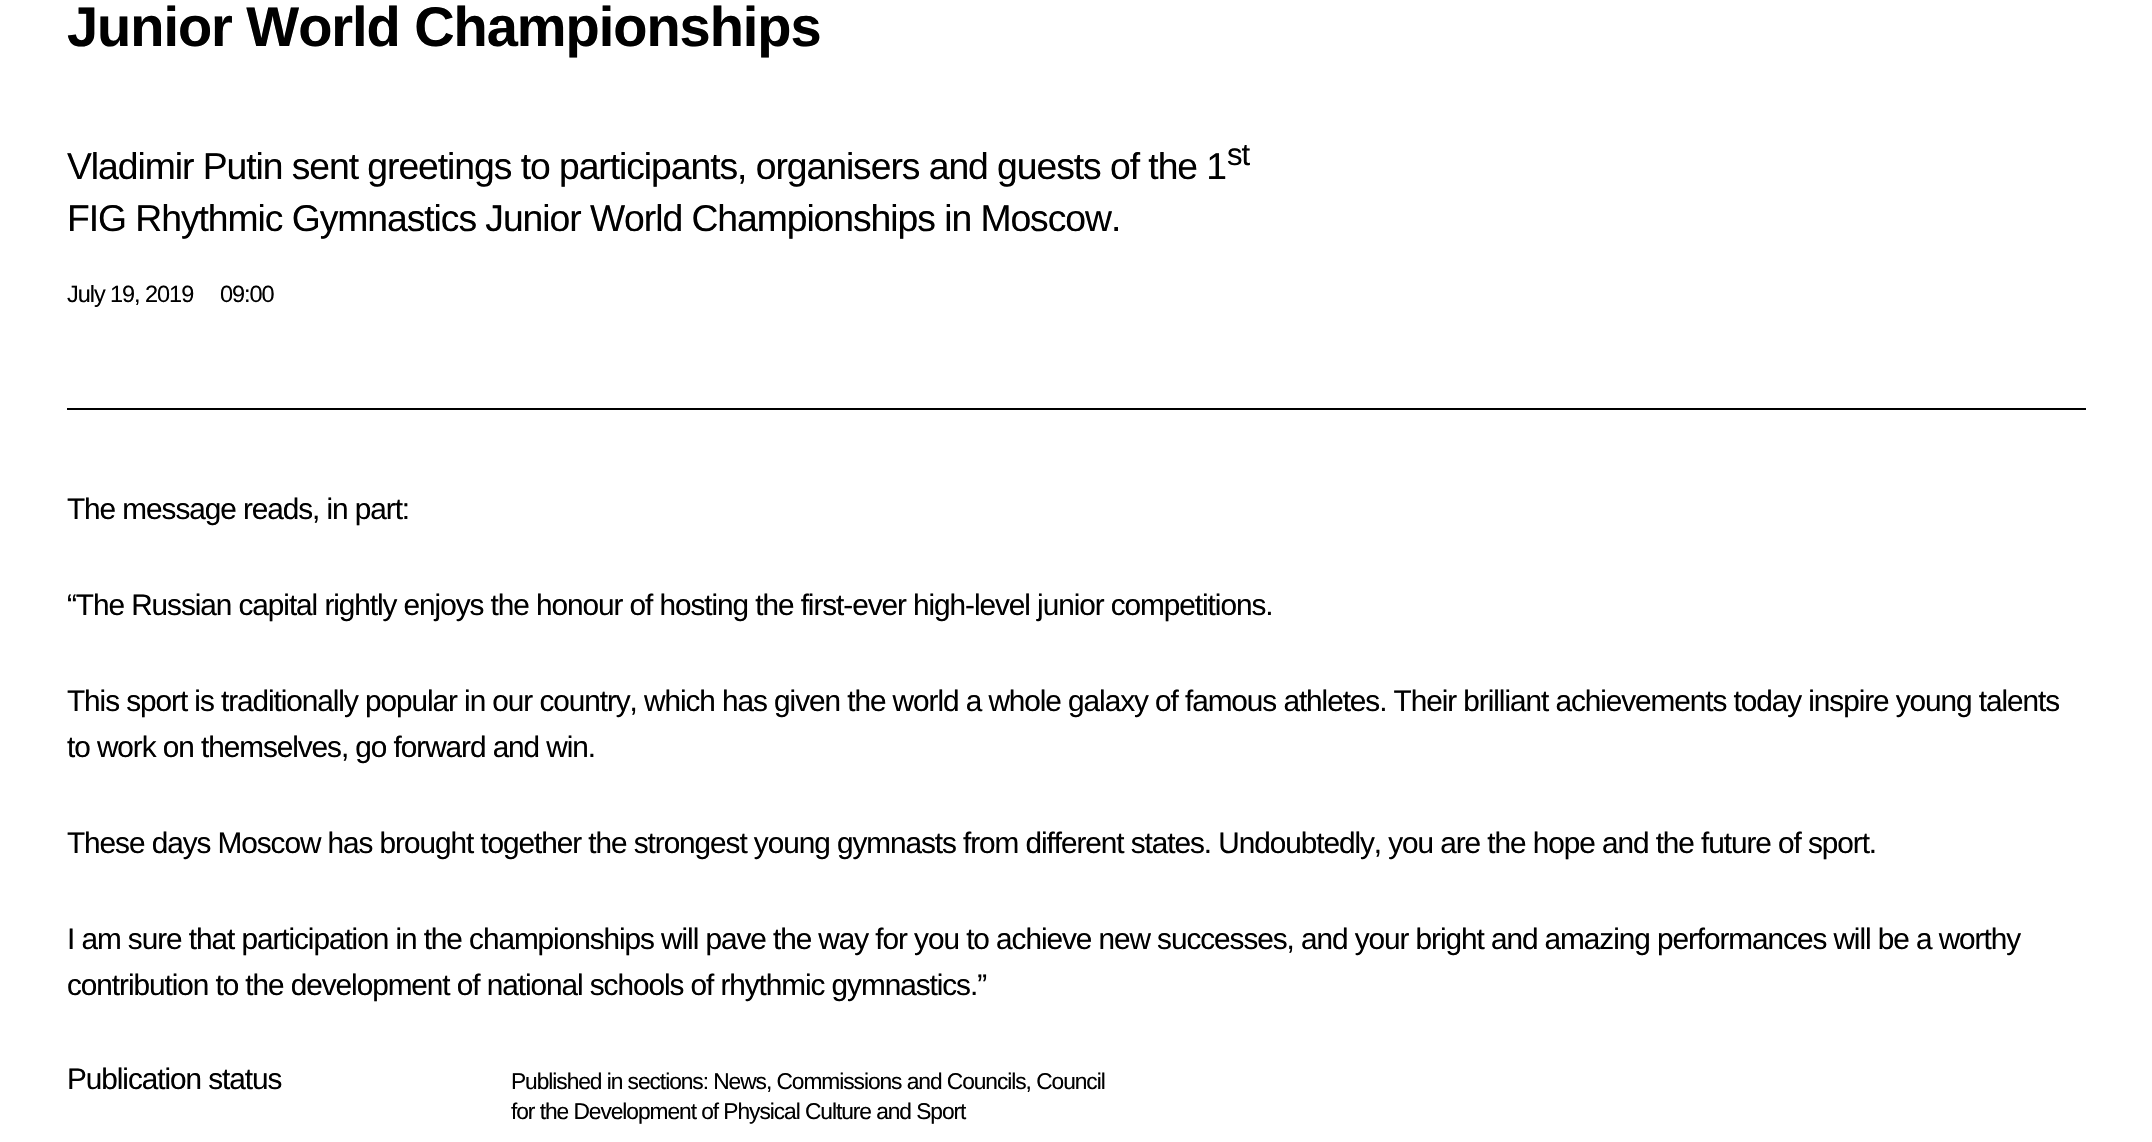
void draw(SkCanvas* canvas) {
    SkPaint paint;
    paint.setAntiAlias(true);
    auto spacedText = [&](const char* s, float x, float y, const SkFont& font, const SkPaint& ink, float letter, float word) {
        std::vector<SkGlyphID> glyphs(font.countText(s, strlen(s), SkTextEncoding::kUTF8));
        std::vector<float> xs(glyphs.size());
        font.textToGlyphs(s, strlen(s), SkTextEncoding::kUTF8, glyphs);
        font.getXPos(glyphs, xs, x);
        float extra = 0;
        for (size_t i = 0; i < glyphs.size(); i++) {
            xs[i] += extra;
            extra += letter + word * (glyphs[i] == font.unicharToGlyph(' '));
        }
        canvas->drawTextBlob(SkTextBlob::MakeFromPosHGlyphs(glyphs, xs, y, font), 0, 0, ink);
    };
    canvas->clear(0xFFFFFFFF);
    paint.setColor(0xFF000000);
    canvas->drawRect(SkRect::MakeXYWH(67, 408, 2019, 2), paint);
    SkFont font1(fontMgr->matchFamilyStyle("Liberation Sans", SkFontStyle::Bold()), 56);
    font1.setSubpixel(true);
    spacedText("Junior World Championships", 67, 46, font1, paint, -1.05f, 0);
    SkFont font2(fontMgr->matchFamilyStyle("Liberation Sans", SkFontStyle::Normal()), 37.3f);
    font2.setSubpixel(true);
    spacedText("Vladimir Putin sent greetings to participants, organisers and guests of the 1", 67, 179, font2, paint, -1.05f, 0);
    SkFont font3(fontMgr->matchFamilyStyle("Liberation Sans", SkFontStyle::Normal()), 31);
    font3.setSubpixel(true);
    spacedText("st", 1227, 165, font3, paint, -1.05f, 0);
    spacedText("FIG Rhythmic Gymnastics Junior World Championships in Moscow.", 67, 231, font2, paint, -1.05f, 0);
    SkFont font4(fontMgr->matchFamilyStyle("Liberation Sans", SkFontStyle::Normal()), 23.5f);
    font4.setSubpixel(true);
    spacedText("July 19, 2019", 67, 302, font4, paint, -1.05f, 0);
    spacedText("09:00", 220, 302, font4, paint, -1.05f, 0);
    SkFont font5(fontMgr->matchFamilyStyle("Liberation Sans", SkFontStyle::Normal()), 29.75f);
    font5.setSubpixel(true);
    spacedText("The message reads, in part:", 67, 519, font5, paint, -1.05f, 0);
    spacedText("“The Russian capital rightly enjoys the honour of hosting the first-ever high-level junior competitions.", 67, 615, font5, paint, -1.05f, 0);
    spacedText("This sport is traditionally popular in our country, which has given the world a whole galaxy of famous athletes. Their brilliant achievements today inspire young talents", 67, 711, font5, paint, -1.05f, 0);
    spacedText("to work on themselves, go forward and win.", 67, 757, font5, paint, -1.05f, 0);
    spacedText("These days Moscow has brought together the strongest young gymnasts from different states. Undoubtedly, you are the hope and the future of sport.", 67, 853, font5, paint, -1.05f, 0);
    spacedText("I am sure that participation in the championships will pave the way for you to achieve new successes, and your bright and amazing performances will be a worthy", 67, 949, font5, paint, -1.05f, 0);
    spacedText("contribution to the development of national schools of rhythmic gymnastics.”", 67, 995, font5, paint, -1.05f, 0);
    spacedText("Publication status", 67, 1089, font5, paint, -1.05f, 0);
    SkFont font6(fontMgr->matchFamilyStyle("Liberation Sans", SkFontStyle::Normal()), 22.75f);
    font6.setSubpixel(true);
    spacedText("Published in sections: News, Commissions and Councils, Council", 511, 1089, font6, paint, -1.05f, 0);
    spacedText("for the Development of Physical Culture and Sport", 511, 1119, font6, paint, -1.05f, 0);
}
